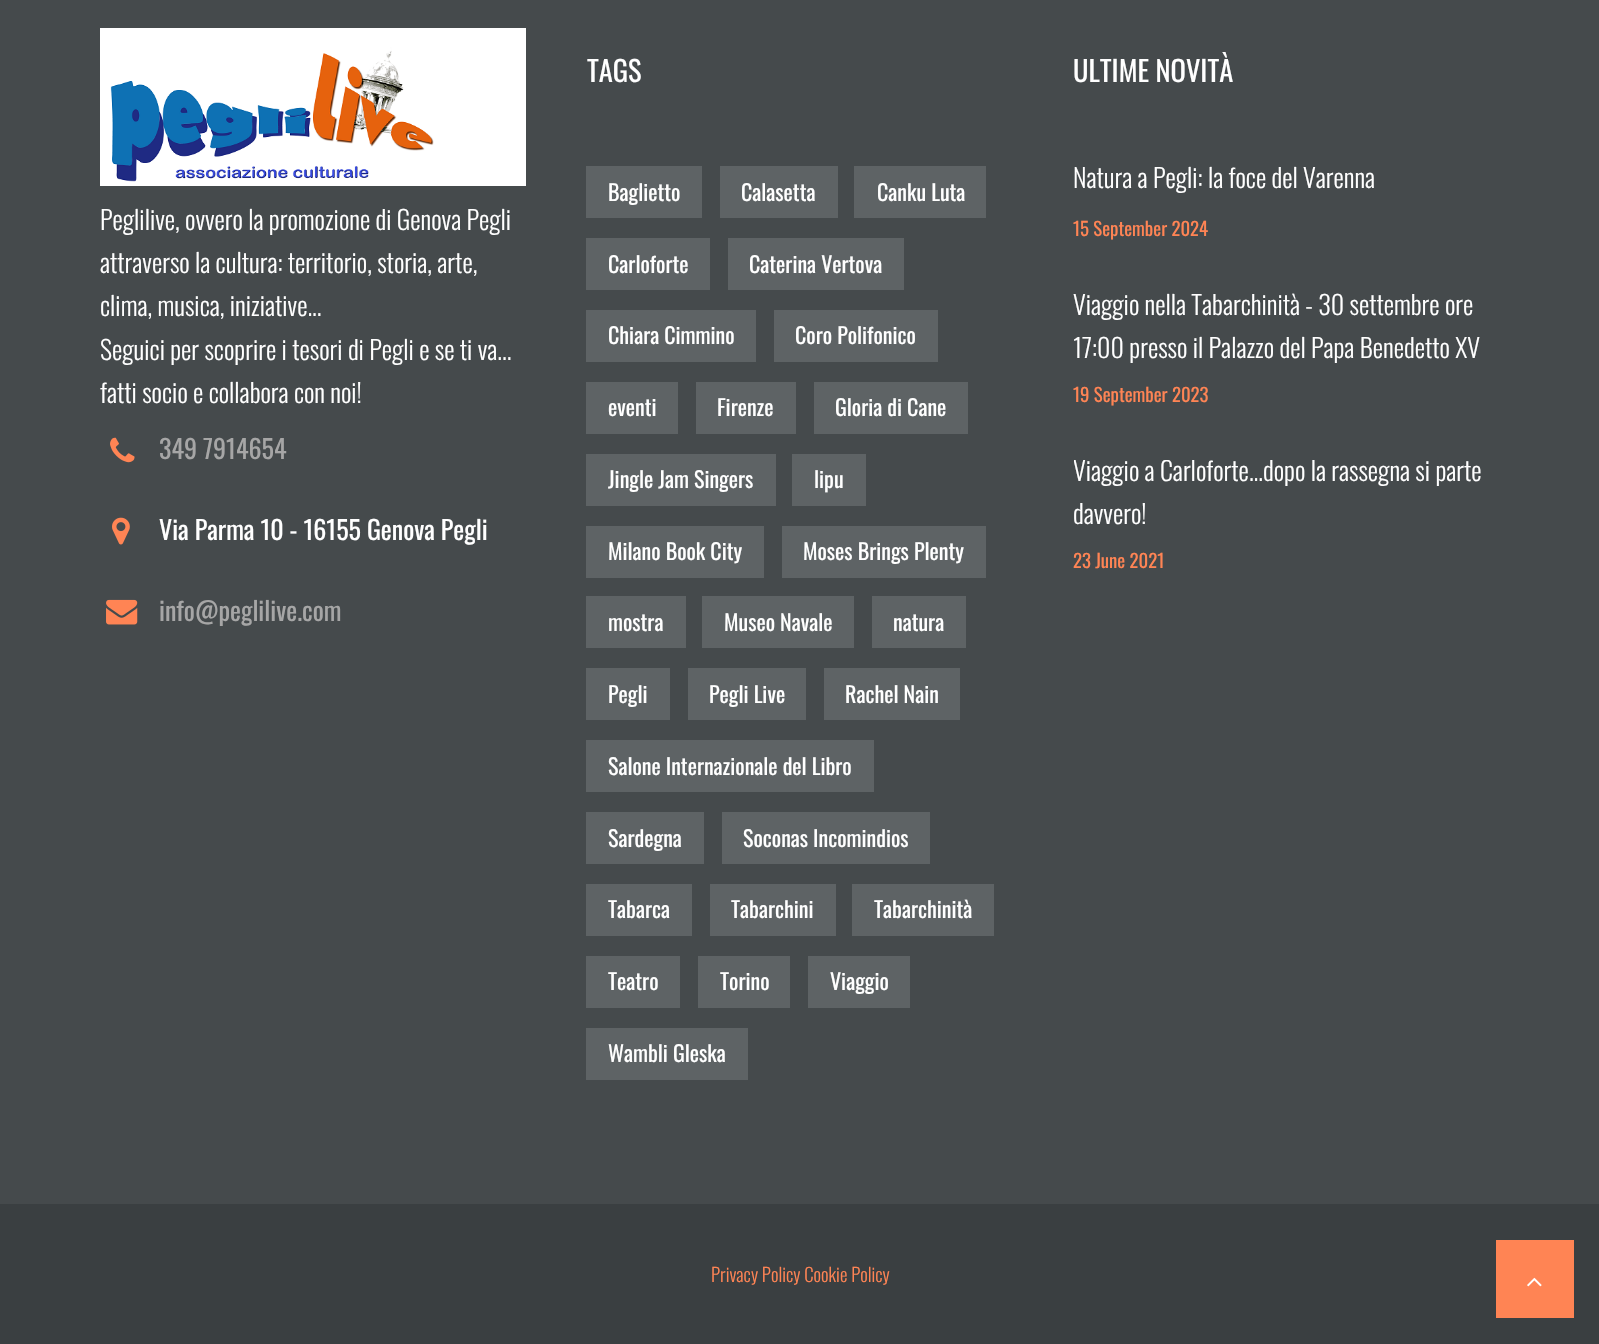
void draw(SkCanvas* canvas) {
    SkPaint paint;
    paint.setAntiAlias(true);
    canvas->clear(0xFF454A4C);
    canvas->drawImageRect(SkImages::DeferredFromEncodedData(SkData::MakeFromFileName("img1.png")), SkRect::MakeXYWH(100, 28, 426, 158), SkSamplingOptions());
    SkFont font1(fontMgr->matchFamilyStyle("Oswald", SkFontStyle(300, SkFontStyle::kNormal_Width, SkFontStyle::kUpright_Slant)), 26);
    font1.setSubpixel(true);
    paint.setColor(0xFFFFFFFF);
    canvas->drawString("Peglilive, ovvero la promozione di Genova Pegli", 100, 230, font1, paint);
    canvas->drawString("attraverso la cultura: territorio, storia, arte,", 100, 273, font1, paint);
    canvas->drawString("clima, musica, iniziative...", 100, 316, font1, paint);
    canvas->drawString("Seguici per scoprire i tesori di Pegli e se ti va...", 100, 360, font1, paint);
    canvas->drawString("fatti socio e collabora con noi!", 100, 403, font1, paint);
    canvas->drawImageRect(SkImages::DeferredFromEncodedData(SkData::MakeFromFileName("img2.png")), SkRect::MakeXYWH(110, 437, 25, 26), SkSamplingOptions());
    SkFont font2(fontMgr->matchFamilyStyle("Oswald", SkFontStyle::Normal()), 26);
    font2.setSubpixel(true);
    paint.setColor(0xFFA6A6A6);
    canvas->drawString("349 7914654", 159, 459, font2, paint);
    canvas->drawImageRect(SkImages::DeferredFromEncodedData(SkData::MakeFromFileName("img3.png")), SkRect::MakeXYWH(112, 517, 18, 28), SkSamplingOptions());
    paint.setColor(0xFFFFFFFF);
    canvas->drawString("Via Parma 10 - 16155 Genova Pegli", 159, 540, font2, paint);
    canvas->drawImageRect(SkImages::DeferredFromEncodedData(SkData::MakeFromFileName("img4.png")), SkRect::MakeXYWH(106, 599, 32, 26), SkSamplingOptions());
    paint.setColor(0xFFA6A6A6);
    canvas->drawString("info@peglilive.com", 159, 621, font2, paint);
    SkFont font3(fontMgr->matchFamilyStyle("Oswald", SkFontStyle::Normal()), 28.5f);
    font3.setSubpixel(true);
    paint.setColor(0xFFFFFFFF);
    canvas->drawString("TAGS", 587, 82, font3, paint);
    paint.setColor(0xFF5E6365);
    canvas->drawRect(SkRect::MakeXYWH(586, 166, 116, 52), paint);
    SkFont font4(fontMgr->matchFamilyStyle("Oswald", SkFontStyle::Normal()), 22);
    font4.setSubpixel(true);
    paint.setColor(0xFFFFFFFF);
    canvas->drawString("Baglietto", 608, 201, font4, paint);
    paint.setColor(0xFF5E6365);
    canvas->drawRect(SkRect::MakeXYWH(720, 166, 118, 52), paint);
    paint.setColor(0xFFFFFFFF);
    canvas->drawString("Calasetta", 741, 201, font4, paint);
    paint.setColor(0xFF5E6365);
    canvas->drawRect(SkRect::MakeXYWH(854, 166, 132, 52), paint);
    paint.setColor(0xFFFFFFFF);
    canvas->drawString("Canku Luta", 877, 201, font4, paint);
    paint.setColor(0xFF5E6365);
    canvas->drawRect(SkRect::MakeXYWH(586, 238, 124, 52), paint);
    paint.setColor(0xFFFFFFFF);
    canvas->drawString("Carloforte", 608, 273, font4, paint);
    paint.setColor(0xFF5E6365);
    canvas->drawRect(SkRect::MakeXYWH(728, 238, 176, 52), paint);
    paint.setColor(0xFFFFFFFF);
    canvas->drawString("Caterina Vertova", 749, 273, font4, paint);
    paint.setColor(0xFF5E6365);
    canvas->drawRect(SkRect::MakeXYWH(586, 310, 170, 52), paint);
    paint.setColor(0xFFFFFFFF);
    canvas->drawString("Chiara Cimmino", 608, 344, font4, paint);
    paint.setColor(0xFF5E6365);
    canvas->drawRect(SkRect::MakeXYWH(774, 310, 164, 52), paint);
    paint.setColor(0xFFFFFFFF);
    canvas->drawString("Coro Polifonico", 795, 344, font4, paint);
    paint.setColor(0xFF5E6365);
    canvas->drawRect(SkRect::MakeXYWH(586, 382, 92, 52), paint);
    paint.setColor(0xFFFFFFFF);
    canvas->drawString("eventi", 608, 416, font4, paint);
    paint.setColor(0xFF5E6365);
    canvas->drawRect(SkRect::MakeXYWH(696, 382, 100, 52), paint);
    paint.setColor(0xFFFFFFFF);
    canvas->drawString("Firenze", 717, 416, font4, paint);
    paint.setColor(0xFF5E6365);
    canvas->drawRect(SkRect::MakeXYWH(814, 382, 154, 52), paint);
    paint.setColor(0xFFFFFFFF);
    canvas->drawString("Gloria di Cane", 835, 416, font4, paint);
    paint.setColor(0xFF5E6365);
    canvas->drawRect(SkRect::MakeXYWH(586, 454, 190, 52), paint);
    paint.setColor(0xFFFFFFFF);
    canvas->drawString("Jingle Jam Singers", 608, 488, font4, paint);
    paint.setColor(0xFF5E6365);
    canvas->drawRect(SkRect::MakeXYWH(792, 454, 74, 52), paint);
    paint.setColor(0xFFFFFFFF);
    canvas->drawString("lipu", 814, 488, font4, paint);
    paint.setColor(0xFF5E6365);
    canvas->drawRect(SkRect::MakeXYWH(586, 526, 178, 52), paint);
    paint.setColor(0xFFFFFFFF);
    canvas->drawString("Milano Book City", 608, 560, font4, paint);
    paint.setColor(0xFF5E6365);
    canvas->drawRect(SkRect::MakeXYWH(782, 526, 204, 52), paint);
    paint.setColor(0xFFFFFFFF);
    canvas->drawString("Moses Brings Plenty", 803, 560, font4, paint);
    paint.setColor(0xFF5E6365);
    canvas->drawRect(SkRect::MakeXYWH(586, 596, 100, 52), paint);
    paint.setColor(0xFFFFFFFF);
    canvas->drawString("mostra", 608, 631, font4, paint);
    paint.setColor(0xFF5E6365);
    canvas->drawRect(SkRect::MakeXYWH(702, 596, 152, 52), paint);
    paint.setColor(0xFFFFFFFF);
    canvas->drawString("Museo Navale", 724, 631, font4, paint);
    paint.setColor(0xFF5E6365);
    canvas->drawRect(SkRect::MakeXYWH(872, 596, 94, 52), paint);
    paint.setColor(0xFFFFFFFF);
    canvas->drawString("natura", 893, 631, font4, paint);
    paint.setColor(0xFF5E6365);
    canvas->drawRect(SkRect::MakeXYWH(586, 668, 84, 52), paint);
    paint.setColor(0xFFFFFFFF);
    canvas->drawString("Pegli", 608, 703, font4, paint);
    paint.setColor(0xFF5E6365);
    canvas->drawRect(SkRect::MakeXYWH(688, 668, 118, 52), paint);
    paint.setColor(0xFFFFFFFF);
    canvas->drawString("Pegli Live", 709, 703, font4, paint);
    paint.setColor(0xFF5E6365);
    canvas->drawRect(SkRect::MakeXYWH(824, 668, 136, 52), paint);
    paint.setColor(0xFFFFFFFF);
    canvas->drawString("Rachel Nain", 845, 703, font4, paint);
    paint.setColor(0xFF5E6365);
    canvas->drawRect(SkRect::MakeXYWH(586, 740, 288, 52), paint);
    paint.setColor(0xFFFFFFFF);
    canvas->drawString("Salone Internazionale del Libro", 608, 775, font4, paint);
    paint.setColor(0xFF5E6365);
    canvas->drawRect(SkRect::MakeXYWH(586, 812, 118, 52), paint);
    paint.setColor(0xFFFFFFFF);
    canvas->drawString("Sardegna", 608, 847, font4, paint);
    paint.setColor(0xFF5E6365);
    canvas->drawRect(SkRect::MakeXYWH(722, 812, 208, 52), paint);
    paint.setColor(0xFFFFFFFF);
    canvas->drawString("Soconas Incomindios", 743, 847, font4, paint);
    paint.setColor(0xFF5E6365);
    canvas->drawRect(SkRect::MakeXYWH(586, 884, 106, 52), paint);
    paint.setColor(0xFFFFFFFF);
    canvas->drawString("Tabarca", 608, 918, font4, paint);
    paint.setColor(0xFF5E6365);
    canvas->drawRect(SkRect::MakeXYWH(710, 884, 126, 52), paint);
    paint.setColor(0xFFFFFFFF);
    canvas->drawString("Tabarchini", 731, 918, font4, paint);
    paint.setColor(0xFF5E6365);
    canvas->drawRect(SkRect::MakeXYWH(852, 884, 142, 52), paint);
    paint.setColor(0xFFFFFFFF);
    canvas->drawString("Tabarchinità", 874, 918, font4, paint);
    paint.setColor(0xFF5E6365);
    canvas->drawRect(SkRect::MakeXYWH(586, 956, 94, 52), paint);
    paint.setColor(0xFFFFFFFF);
    canvas->drawString("Teatro", 608, 990, font4, paint);
    paint.setColor(0xFF5E6365);
    canvas->drawRect(SkRect::MakeXYWH(698, 956, 92, 52), paint);
    paint.setColor(0xFFFFFFFF);
    canvas->drawString("Torino", 720, 990, font4, paint);
    paint.setColor(0xFF5E6365);
    canvas->drawRect(SkRect::MakeXYWH(808, 956, 102, 52), paint);
    paint.setColor(0xFFFFFFFF);
    canvas->drawString("Viaggio", 830, 990, font4, paint);
    paint.setColor(0xFF5E6365);
    canvas->drawRect(SkRect::MakeXYWH(586, 1028, 162, 52), paint);
    paint.setColor(0xFFFFFFFF);
    canvas->drawString("Wambli Gleska", 608, 1062, font4, paint);
    canvas->drawString("ULTIME NOVITÀ", 1073, 82, font3, paint);
    canvas->drawString("Natura a Pegli: la foce del Varenna", 1073, 188, font1, paint);
    SkFont font5(fontMgr->matchFamilyStyle("Oswald", SkFontStyle::Normal()), 18.75f);
    font5.setSubpixel(true);
    paint.setColor(0xFFFF8454);
    canvas->drawString("15 September 2024", 1073, 236, font5, paint);
    paint.setColor(0xFFFFFFFF);
    canvas->drawString("Viaggio nella Tabarchinità - 30 settembre ore", 1073, 315, font1, paint);
    canvas->drawString("17:00 presso il Palazzo del Papa Benedetto XV", 1073, 358, font1, paint);
    paint.setColor(0xFFFF8454);
    canvas->drawString("19 September 2023", 1073, 402, font5, paint);
    canvas->save();
    canvas->clipRect(SkRect::MakeXYWH(1074, 460, 426, 72));
    paint.setColor(0xFFFFFFFF);
    canvas->drawString("Viaggio a Carloforte...dopo la rassegna si parte", 1073, 481, font1, paint);
    canvas->restore();
    canvas->drawString("davvero!", 1073, 524, font1, paint);
    paint.setColor(0xFFFF8454);
    canvas->drawString("23 June 2021", 1073, 568, font5, paint);
    paint.setColor(0xFF3A3F41);
    canvas->drawRect(SkRect::MakeXYWH(0, 1204, 1599, 140), paint);
    SkFont font6(fontMgr->matchFamilyStyle("Oswald", SkFontStyle(300, SkFontStyle::kNormal_Width, SkFontStyle::kUpright_Slant)), 18.75f);
    font6.setSubpixel(true);
    paint.setColor(0xFFFF8454);
    canvas->drawString("Privacy Policy Cookie Policy", 711, 1282, font6, paint);
    canvas->drawRect(SkRect::MakeXYWH(1496, 1240, 78, 78), paint);
    canvas->drawImageRect(SkImages::DeferredFromEncodedData(SkData::MakeFromFileName("img5.png")), SkRect::MakeXYWH(1527, 1277, 15, 10), SkSamplingOptions());
}
